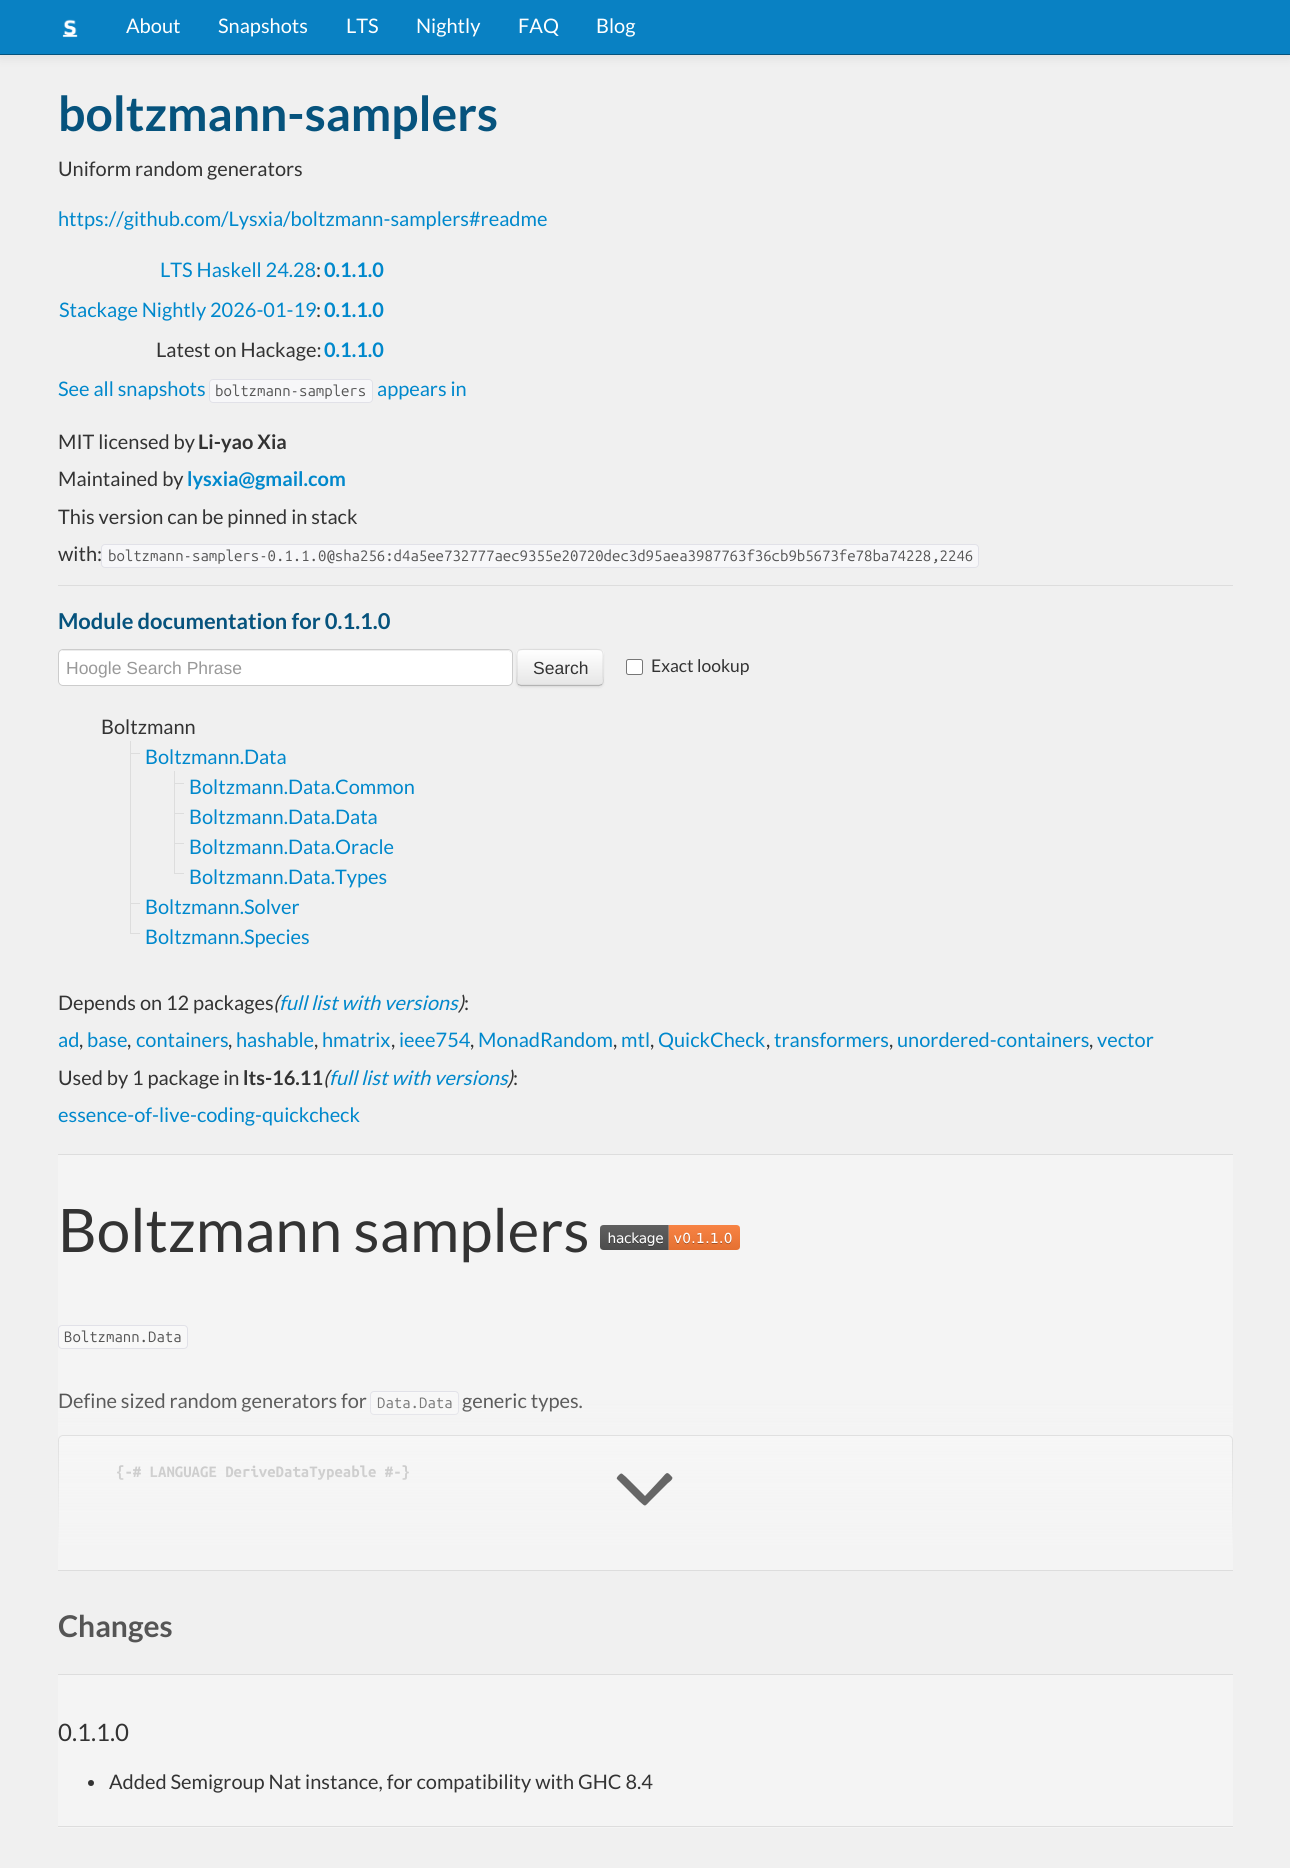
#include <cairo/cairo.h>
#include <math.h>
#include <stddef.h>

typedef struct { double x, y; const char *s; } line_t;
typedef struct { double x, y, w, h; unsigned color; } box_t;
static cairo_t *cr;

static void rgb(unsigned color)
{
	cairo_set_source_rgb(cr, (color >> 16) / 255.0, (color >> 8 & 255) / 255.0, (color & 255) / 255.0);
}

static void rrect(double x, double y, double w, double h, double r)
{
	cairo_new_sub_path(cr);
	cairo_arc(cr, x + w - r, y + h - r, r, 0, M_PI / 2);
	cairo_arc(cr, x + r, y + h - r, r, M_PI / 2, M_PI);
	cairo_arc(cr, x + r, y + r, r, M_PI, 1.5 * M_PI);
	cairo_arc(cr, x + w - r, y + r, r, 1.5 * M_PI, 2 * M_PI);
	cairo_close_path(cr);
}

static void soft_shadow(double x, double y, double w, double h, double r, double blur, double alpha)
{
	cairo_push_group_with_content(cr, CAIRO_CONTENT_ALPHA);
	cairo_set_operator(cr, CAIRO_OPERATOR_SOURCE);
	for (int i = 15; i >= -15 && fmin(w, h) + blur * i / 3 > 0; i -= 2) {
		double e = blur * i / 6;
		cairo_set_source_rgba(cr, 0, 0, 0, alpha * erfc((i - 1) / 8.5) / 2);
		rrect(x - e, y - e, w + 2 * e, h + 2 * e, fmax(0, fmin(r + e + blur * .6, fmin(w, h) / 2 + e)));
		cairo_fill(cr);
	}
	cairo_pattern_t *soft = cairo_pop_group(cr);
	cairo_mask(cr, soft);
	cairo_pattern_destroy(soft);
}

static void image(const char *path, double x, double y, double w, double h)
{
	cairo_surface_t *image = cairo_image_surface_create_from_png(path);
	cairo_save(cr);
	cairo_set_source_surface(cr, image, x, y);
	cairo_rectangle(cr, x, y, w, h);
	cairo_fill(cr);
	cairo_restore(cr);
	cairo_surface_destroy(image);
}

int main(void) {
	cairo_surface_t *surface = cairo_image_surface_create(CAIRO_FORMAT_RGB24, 1290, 1868);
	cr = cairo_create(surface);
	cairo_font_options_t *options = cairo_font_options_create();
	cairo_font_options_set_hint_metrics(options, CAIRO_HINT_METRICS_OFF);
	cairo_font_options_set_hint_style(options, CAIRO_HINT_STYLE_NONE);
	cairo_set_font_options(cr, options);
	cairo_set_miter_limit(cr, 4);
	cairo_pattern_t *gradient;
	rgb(0xf0f0f0);
	cairo_paint(cr);
	rgb(0x000000);
	soft_shadow(0, 1, 1290, 55, 0, 6, 0.1);
	rgb(0x0981c3);
	cairo_rectangle(cr, 0, 0, 1290, 54);
	cairo_fill(cr);
	rgb(0x06537d);
	cairo_rectangle(cr, 0, 54, 1290, 1);
	cairo_fill(cr);
	image("img/1.png", 62, 19, 16, 19);
	rgb(0xf7f7f9);
	rrect(209.5, 379.5, 163, 23, 3.5);
	cairo_fill_preserve(cr);
	rgb(0xe1e1e8);
	cairo_set_line_width(cr, 1);
	cairo_stroke(cr);
	rgb(0xf7f7f9);
	rrect(101.5, 544.5, 877, 23, 3.5);
	cairo_fill_preserve(cr);
	rgb(0xe1e1e8);
	cairo_stroke(cr);
	rgb(0xdddddd);
	cairo_rectangle(cr, 58, 585, 1175, 1);
	cairo_fill(cr);
	rgb(0xffffff);
	rrect(58, 649, 455, 37, 5);
	cairo_fill(cr);
	rgb(0xececec);
	cairo_new_path(cr);
	cairo_move_to(cr, 62, 651);
	cairo_line_to(cr, 508, 651);
	cairo_curve_to(cr, 510, 651, 511, 653, 511, 655);
	cairo_curve_to(cr, 511, 652, 510, 650, 507, 650);
	cairo_line_to(cr, 63, 650);
	cairo_line_to(cr, 61, 651);
	cairo_line_to(cr, 60, 652);
	cairo_line_to(cr, 59, 655);
	cairo_curve_to(cr, 59, 653, 60, 651, 62, 651);
	cairo_close_path(cr);
	cairo_fill(cr);
	rrect(58.5, 649.5, 454, 36, 4.5);
	rgb(0xcccccc);
	cairo_stroke(cr);
	rgb(0x000000);
	soft_shadow(516, 650, 88, 38, 5, 1, 0.05);
	rgb(0xf5f5f5);
	rrect(516, 649, 88, 37, 5);
	cairo_fill(cr);
	cairo_save(cr);
	rrect(516, 649, 88, 37, 5);
	cairo_clip(cr);
	gradient = cairo_pattern_create_linear(560, 650, 560, 685);
	cairo_pattern_add_color_stop_rgba(gradient, 0, 1, 1, 1, 1);
	cairo_pattern_add_color_stop_rgba(gradient, 1, 0.902, 0.902, 0.902, 1);
	cairo_set_source(cr, gradient);
	cairo_pattern_destroy(gradient);
	cairo_rectangle(cr, 516, 650, 88, 35);
	cairo_fill(cr);
	cairo_restore(cr);
	cairo_set_source_rgba(cr, 1, 1, 1, 0.2);
	cairo_new_path(cr);
	cairo_move_to(cr, 521, 651);
	cairo_line_to(cr, 599, 651);
	cairo_curve_to(cr, 604, 651, 602, 662, 602, 664);
	cairo_line_to(cr, 602, 684);
	cairo_curve_to(cr, 604, 681, 603, 671, 603, 668);
	cairo_curve_to(cr, 603, 648, 606, 650, 586, 650);
	cairo_line_to(cr, 535, 650);
	cairo_curve_to(cr, 534, 650, 520, 647, 518, 652);
	cairo_line_to(cr, 518, 655);
	cairo_curve_to(cr, 518, 653, 519, 651, 521, 651);
	cairo_close_path(cr);
	cairo_fill(cr);
	cairo_new_path(cr);
	cairo_move_to(cr, 602, 684.5);
	cairo_line_to(cr, 599, 685.5);
	cairo_line_to(cr, 521, 685.5);
	cairo_line_to(cr, 518, 684.5);
	rgb(0xb3b3b3);
	cairo_set_line_width(cr, 1.2);
	cairo_stroke(cr);
	cairo_new_path(cr);
	cairo_move_to(cr, 518, 684.5);
	cairo_curve_to(cr, 516, 682.5, 517, 679, 517, 676.5);
	cairo_line_to(cr, 517, 667.5);
	cairo_curve_to(cr, 517, 647.5, 514, 649.5, 534, 649.5);
	cairo_line_to(cr, 586, 649.5);
	cairo_curve_to(cr, 606, 649.5, 603, 647.5, 603, 667.5);
	cairo_line_to(cr, 603, 676.5);
	cairo_curve_to(cr, 603, 679, 604, 682.5, 602, 684.5);
	cairo_set_source_rgba(cr, 0, 0, 0, 0.1);
	cairo_stroke(cr);
	rgb(0xffffff);
	rrect(626.5, 659.5, 16, 15, 2);
	cairo_fill_preserve(cr);
	rgb(0x767676);
	cairo_set_line_width(cr, 1);
	cairo_stroke(cr);
	{
		static const box_t items[] = {
			{130, 753, 10, 1, 0xdddddd},
			{130, 741, 1, 150, 0xdddddd},
			{174, 783, 10, 1, 0xdddddd},
			{174, 771, 1, 30, 0xdddddd},
			{174, 813, 10, 1, 0xdddddd},
			{174, 801, 1, 30, 0xdddddd},
			{174, 843, 10, 1, 0xdddddd},
			{174, 831, 1, 42, 0xdddddd},
			{174, 873, 10, 1, 0xdddddd},
			{130, 903, 10, 1, 0xdddddd},
			{130, 891, 1, 42, 0xdddddd},
			{130, 933, 10, 1, 0xdddddd},
			{58, 1155, 1175, 415, 0xf4f4f4},
			{58, 1154, 1175, 1, 0xdddddd},
			{58, 1570, 1175, 1, 0xdddddd},
		};
		for (size_t i = 0; i < sizeof items / sizeof *items; i++) {
			rgb(items[i].color);
			cairo_rectangle(cr, items[i].x, items[i].y, items[i].w, items[i].h);
			cairo_fill(cr);
		}
	}
	image("img/2.png", 600, 1225, 140, 25);
	rgb(0xf8f8f8);
	rrect(58.5, 1325.5, 129, 23, 3.5);
	cairo_fill_preserve(cr);
	rgb(0xe1e1e8);
	cairo_stroke(cr);
	rgb(0xf8f8f8);
	rrect(370.5, 1391.5, 88, 23, 3.5);
	cairo_fill_preserve(cr);
	rgb(0xe1e1e8);
	cairo_stroke(cr);
	rgb(0xf8f8f8);
	cairo_new_path(cr);
	cairo_move_to(cr, 63, 1435);
	cairo_line_to(cr, 1228, 1435);
	cairo_curve_to(cr, 1231, 1435, 1233, 1437, 1233, 1440);
	cairo_line_to(cr, 1233, 1550);
	cairo_line_to(cr, 58, 1550);
	cairo_line_to(cr, 58, 1440);
	cairo_curve_to(cr, 58, 1437, 60, 1435, 63, 1435);
	cairo_close_path(cr);
	cairo_fill(cr);
	{
		static const box_t items[] = {
			{58, 1675, 1175, 153, 0xf4f4f4},
			{58, 1674, 1175, 1, 0xdddddd},
			{58, 1826, 1175, 1, 0xdddddd},
		};
		for (size_t i = 0; i < sizeof items / sizeof *items; i++) {
			rgb(items[i].color);
			cairo_rectangle(cr, items[i].x, items[i].y, items[i].w, items[i].h);
			cairo_fill(cr);
		}
	}
	cairo_select_font_face(cr, "Lato", CAIRO_FONT_SLANT_NORMAL, CAIRO_FONT_WEIGHT_NORMAL);
	cairo_set_font_size(cr, 20);
	rgb(0xffffff);
	{
		static const line_t items[] = {
			{126, 33, "About"},
			{218, 33, "Snapshots"},
			{346, 33, "LTS"},
			{416, 33, "Nightly"},
			{518, 33, "FAQ"},
			{596, 33, "Blog"},
		};
		for (size_t i = 0; i < sizeof items / sizeof *items; i++) {
			cairo_move_to(cr, items[i].x, items[i].y);
			cairo_show_text(cr, items[i].s);
		}
	}
	cairo_select_font_face(cr, "Lato", CAIRO_FONT_SLANT_NORMAL, CAIRO_FONT_WEIGHT_BOLD);
	cairo_set_font_size(cr, 48.1);
	rgb(0x06537d);
	cairo_move_to(cr, 58, 131);
	cairo_show_text(cr, "boltzmann-samplers");
	cairo_select_font_face(cr, "Lato", CAIRO_FONT_SLANT_NORMAL, CAIRO_FONT_WEIGHT_NORMAL);
	cairo_set_font_size(cr, 20);
	rgb(0x333333);
	cairo_move_to(cr, 58, 176);
	cairo_show_text(cr, "Uniform random generators");
	rgb(0x0088cc);
	cairo_move_to(cr, 58, 226);
	cairo_show_text(cr, "https://github.com/Lysxia/boltzmann-samplers#readme");
	cairo_move_to(cr, 160, 277);
	cairo_show_text(cr, "LTS Haskell 24.28");
	rgb(0x333333);
	cairo_move_to(cr, 316, 277);
	cairo_show_text(cr, ":");
	cairo_select_font_face(cr, "Lato", CAIRO_FONT_SLANT_NORMAL, CAIRO_FONT_WEIGHT_BOLD);
	rgb(0x0088cc);
	cairo_move_to(cr, 324, 277);
	cairo_show_text(cr, "0.1.1.0");
	cairo_select_font_face(cr, "Lato", CAIRO_FONT_SLANT_NORMAL, CAIRO_FONT_WEIGHT_NORMAL);
	cairo_move_to(cr, 59, 317);
	cairo_show_text(cr, "Stackage Nightly 2026-01-19");
	rgb(0x333333);
	cairo_move_to(cr, 316, 317);
	cairo_show_text(cr, ":");
	cairo_select_font_face(cr, "Lato", CAIRO_FONT_SLANT_NORMAL, CAIRO_FONT_WEIGHT_BOLD);
	rgb(0x0088cc);
	cairo_move_to(cr, 324, 317);
	cairo_show_text(cr, "0.1.1.0");
	cairo_select_font_face(cr, "Lato", CAIRO_FONT_SLANT_NORMAL, CAIRO_FONT_WEIGHT_NORMAL);
	rgb(0x333333);
	cairo_move_to(cr, 156, 357);
	cairo_show_text(cr, "Latest on Hackage:");
	cairo_select_font_face(cr, "Lato", CAIRO_FONT_SLANT_NORMAL, CAIRO_FONT_WEIGHT_BOLD);
	rgb(0x0088cc);
	cairo_move_to(cr, 324, 357);
	cairo_show_text(cr, "0.1.1.0");
	cairo_select_font_face(cr, "Lato", CAIRO_FONT_SLANT_NORMAL, CAIRO_FONT_WEIGHT_NORMAL);
	cairo_move_to(cr, 58, 396);
	cairo_show_text(cr, "See all snapshots");
	cairo_select_font_face(cr, "Ubuntu Mono", CAIRO_FONT_SLANT_NORMAL, CAIRO_FONT_WEIGHT_NORMAL);
	cairo_set_font_size(cr, 15);
	rgb(0x555555);
	cairo_move_to(cr, 215, 396);
	cairo_show_text(cr, "boltzmann-samplers");
	cairo_select_font_face(cr, "Lato", CAIRO_FONT_SLANT_NORMAL, CAIRO_FONT_WEIGHT_NORMAL);
	cairo_set_font_size(cr, 20);
	rgb(0x0088cc);
	cairo_move_to(cr, 377, 396);
	cairo_show_text(cr, "appears in");
	rgb(0x333333);
	cairo_move_to(cr, 58, 449);
	cairo_show_text(cr, "MIT licensed by");
	cairo_select_font_face(cr, "Lato", CAIRO_FONT_SLANT_NORMAL, CAIRO_FONT_WEIGHT_BOLD);
	cairo_move_to(cr, 198, 449);
	cairo_show_text(cr, "Li-yao Xia");
	cairo_select_font_face(cr, "Lato", CAIRO_FONT_SLANT_NORMAL, CAIRO_FONT_WEIGHT_NORMAL);
	cairo_move_to(cr, 58, 486);
	cairo_show_text(cr, "Maintained by");
	cairo_select_font_face(cr, "Lato", CAIRO_FONT_SLANT_NORMAL, CAIRO_FONT_WEIGHT_BOLD);
	rgb(0x0088cc);
	cairo_move_to(cr, 187, 486);
	cairo_show_text(cr, "lysxia@gmail.com");
	cairo_select_font_face(cr, "Lato", CAIRO_FONT_SLANT_NORMAL, CAIRO_FONT_WEIGHT_NORMAL);
	rgb(0x333333);
	cairo_move_to(cr, 58, 524);
	cairo_show_text(cr, "This version can be pinned in stack");
	cairo_move_to(cr, 58, 561);
	cairo_show_text(cr, "with:");
	cairo_select_font_face(cr, "Ubuntu Mono", CAIRO_FONT_SLANT_NORMAL, CAIRO_FONT_WEIGHT_NORMAL);
	cairo_set_font_size(cr, 15);
	rgb(0x555555);
	cairo_move_to(cr, 108, 561);
	cairo_show_text(cr, "boltzmann-samplers-0.1.1.0@sha256:d4a5ee732777aec9355e20720dec3d95aea3987763f36cb9b5673fe78ba74228,2246");
	cairo_select_font_face(cr, "Lato", CAIRO_FONT_SLANT_NORMAL, CAIRO_FONT_WEIGHT_BOLD);
	cairo_set_font_size(cr, 21.9);
	rgb(0x06537d);
	cairo_move_to(cr, 58, 629);
	cairo_show_text(cr, "Module documentation for 0.1.1.0");
	cairo_select_font_face(cr, "Liberation Sans", CAIRO_FONT_SLANT_NORMAL, CAIRO_FONT_WEIGHT_NORMAL);
	cairo_set_font_size(cr, 17.5);
	rgb(0x999999);
	cairo_move_to(cr, 66, 674);
	cairo_show_text(cr, "Hoogle Search Phrase");
	rgb(0x333333);
	cairo_move_to(cr, 533, 674);
	cairo_show_text(cr, "Search");
	cairo_select_font_face(cr, "Lato", CAIRO_FONT_SLANT_NORMAL, CAIRO_FONT_WEIGHT_NORMAL);
	cairo_move_to(cr, 651, 672);
	cairo_show_text(cr, "Exact lookup");
	cairo_set_font_size(cr, 20);
	cairo_move_to(cr, 101, 734);
	cairo_show_text(cr, "Boltzmann");
	rgb(0x0088cc);
	{
		static const line_t items[] = {
			{145, 764, "Boltzmann.Data"},
			{189, 794, "Boltzmann.Data.Common"},
			{189, 824, "Boltzmann.Data.Data"},
			{189, 854, "Boltzmann.Data.Oracle"},
			{189, 884, "Boltzmann.Data.Types"},
			{145, 914, "Boltzmann.Solver"},
			{145, 944, "Boltzmann.Species"},
		};
		for (size_t i = 0; i < sizeof items / sizeof *items; i++) {
			cairo_move_to(cr, items[i].x, items[i].y);
			cairo_show_text(cr, items[i].s);
		}
	}
	rgb(0x333333);
	cairo_move_to(cr, 58, 1010);
	cairo_show_text(cr, "Depends on 12 packages");
	cairo_select_font_face(cr, "Lato", CAIRO_FONT_SLANT_ITALIC, CAIRO_FONT_WEIGHT_NORMAL);
	cairo_move_to(cr, 273, 1010);
	cairo_show_text(cr, "(");
	rgb(0x0088cc);
	cairo_move_to(cr, 279, 1010);
	cairo_show_text(cr, "full list with versions");
	rgb(0x333333);
	cairo_move_to(cr, 458, 1010);
	cairo_show_text(cr, ")");
	cairo_select_font_face(cr, "Lato", CAIRO_FONT_SLANT_NORMAL, CAIRO_FONT_WEIGHT_NORMAL);
	cairo_move_to(cr, 464, 1010);
	cairo_show_text(cr, ":");
	rgb(0x0088cc);
	cairo_move_to(cr, 58, 1047);
	cairo_show_text(cr, "ad");
	rgb(0x333333);
	cairo_move_to(cr, 79, 1047);
	cairo_show_text(cr, ",");
	rgb(0x0088cc);
	cairo_move_to(cr, 87, 1047);
	cairo_show_text(cr, "base");
	rgb(0x333333);
	cairo_move_to(cr, 127, 1047);
	cairo_show_text(cr, ",");
	rgb(0x0088cc);
	cairo_move_to(cr, 136, 1047);
	cairo_show_text(cr, "containers");
	rgb(0x333333);
	cairo_move_to(cr, 228, 1047);
	cairo_show_text(cr, ",");
	rgb(0x0088cc);
	cairo_move_to(cr, 236, 1047);
	cairo_show_text(cr, "hashable");
	rgb(0x333333);
	cairo_move_to(cr, 314, 1047);
	cairo_show_text(cr, ",");
	rgb(0x0088cc);
	cairo_move_to(cr, 322, 1047);
	cairo_show_text(cr, "hmatrix");
	rgb(0x333333);
	cairo_move_to(cr, 391, 1047);
	cairo_show_text(cr, ",");
	rgb(0x0088cc);
	cairo_move_to(cr, 399, 1047);
	cairo_show_text(cr, "ieee754");
	rgb(0x333333);
	cairo_move_to(cr, 470, 1047);
	cairo_show_text(cr, ",");
	rgb(0x0088cc);
	cairo_move_to(cr, 478, 1047);
	cairo_show_text(cr, "MonadRandom");
	rgb(0x333333);
	cairo_move_to(cr, 613, 1047);
	cairo_show_text(cr, ",");
	rgb(0x0088cc);
	cairo_move_to(cr, 621, 1047);
	cairo_show_text(cr, "mtl");
	rgb(0x333333);
	cairo_move_to(cr, 650, 1047);
	cairo_show_text(cr, ",");
	rgb(0x0088cc);
	cairo_move_to(cr, 658, 1047);
	cairo_show_text(cr, "QuickCheck");
	rgb(0x333333);
	cairo_move_to(cr, 766, 1047);
	cairo_show_text(cr, ",");
	rgb(0x0088cc);
	cairo_move_to(cr, 774, 1047);
	cairo_show_text(cr, "transformers");
	rgb(0x333333);
	cairo_move_to(cr, 889, 1047);
	cairo_show_text(cr, ",");
	rgb(0x0088cc);
	cairo_move_to(cr, 897, 1047);
	cairo_show_text(cr, "unordered-containers");
	rgb(0x333333);
	cairo_move_to(cr, 1089, 1047);
	cairo_show_text(cr, ",");
	rgb(0x0088cc);
	cairo_move_to(cr, 1097, 1047);
	cairo_show_text(cr, "vector");
	rgb(0x333333);
	cairo_move_to(cr, 58, 1085);
	cairo_show_text(cr, "Used by 1 package in");
	cairo_select_font_face(cr, "Lato", CAIRO_FONT_SLANT_NORMAL, CAIRO_FONT_WEIGHT_BOLD);
	cairo_move_to(cr, 243, 1085);
	cairo_show_text(cr, "lts-16.11");
	cairo_select_font_face(cr, "Lato", CAIRO_FONT_SLANT_ITALIC, CAIRO_FONT_WEIGHT_NORMAL);
	cairo_move_to(cr, 323, 1085);
	cairo_show_text(cr, "(");
	rgb(0x0088cc);
	cairo_move_to(cr, 329, 1085);
	cairo_show_text(cr, "full list with versions");
	rgb(0x333333);
	cairo_move_to(cr, 507, 1085);
	cairo_show_text(cr, ")");
	cairo_select_font_face(cr, "Lato", CAIRO_FONT_SLANT_NORMAL, CAIRO_FONT_WEIGHT_NORMAL);
	cairo_move_to(cr, 513, 1085);
	cairo_show_text(cr, ":");
	rgb(0x0088cc);
	cairo_move_to(cr, 58, 1122);
	cairo_show_text(cr, "essence-of-live-coding-quickcheck");
	cairo_set_font_size(cr, 60);
	rgb(0x333333);
	cairo_move_to(cr, 58, 1252);
	cairo_show_text(cr, "Boltzmann samplers");
	cairo_select_font_face(cr, "Ubuntu Mono", CAIRO_FONT_SLANT_NORMAL, CAIRO_FONT_WEIGHT_NORMAL);
	cairo_set_font_size(cr, 15);
	rgb(0x555555);
	cairo_move_to(cr, 64, 1342);
	cairo_show_text(cr, "Boltzmann.Data");
	cairo_select_font_face(cr, "Lato", CAIRO_FONT_SLANT_NORMAL, CAIRO_FONT_WEIGHT_NORMAL);
	cairo_set_font_size(cr, 20);
	rgb(0x333333);
	cairo_move_to(cr, 58, 1408);
	cairo_show_text(cr, "Define sized random generators for");
	cairo_select_font_face(cr, "Ubuntu Mono", CAIRO_FONT_SLANT_NORMAL, CAIRO_FONT_WEIGHT_NORMAL);
	cairo_set_font_size(cr, 15);
	rgb(0x555555);
	cairo_move_to(cr, 377, 1408);
	cairo_show_text(cr, "Data.Data");
	cairo_select_font_face(cr, "Lato", CAIRO_FONT_SLANT_NORMAL, CAIRO_FONT_WEIGHT_NORMAL);
	cairo_set_font_size(cr, 20);
	rgb(0x333333);
	cairo_move_to(cr, 462, 1408);
	cairo_show_text(cr, "generic types.");
	cairo_select_font_face(cr, "Lato", CAIRO_FONT_SLANT_NORMAL, CAIRO_FONT_WEIGHT_BOLD);
	cairo_set_font_size(cr, 30);
	rgb(0x555555);
	cairo_move_to(cr, 58, 1637);
	cairo_show_text(cr, "Changes");
	cairo_save(cr);
	cairo_rectangle(cr, 58, 1175, 1175, 375);
	cairo_clip(cr);
	rrect(58.5, 1435.5, 1174, 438, 4.5);
	rgb(0xd3d3d3);
	cairo_stroke(cr);
	cairo_restore(cr);
	cairo_select_font_face(cr, "Ubuntu Mono", CAIRO_FONT_SLANT_NORMAL, CAIRO_FONT_WEIGHT_BOLD);
	cairo_set_font_size(cr, 15);
	rgb(0x999999);
	cairo_move_to(cr, 116, 1477);
	cairo_show_text(cr, "{-# LANGUAGE DeriveDataTypeable #-}");
	gradient = cairo_pattern_create_linear(645, 1363, 645, 1550);
	cairo_pattern_add_color_stop_rgba(gradient, 0, 0.957, 0.957, 0.957, 0);
	cairo_pattern_add_color_stop_rgba(gradient, 1, 0.957, 0.957, 0.957, 1);
	cairo_set_source(cr, gradient);
	cairo_pattern_destroy(gradient);
	cairo_rectangle(cr, 58, 1393, 1175, 157);
	cairo_fill(cr);
	rgb(0x666666);
	cairo_new_path(cr);
	cairo_move_to(cr, 672, 1477);
	cairo_curve_to(cr, 674, 1479, 668, 1483, 668, 1483);
	cairo_line_to(cr, 650, 1501);
	cairo_curve_to(cr, 644, 1507, 646, 1507, 639, 1501);
	cairo_line_to(cr, 617, 1479);
	cairo_curve_to(cr, 616, 1478, 618, 1476, 619, 1475);
	cairo_curve_to(cr, 622, 1472, 622, 1474, 626, 1477);
	cairo_line_to(cr, 645, 1496);
	cairo_line_to(cr, 659, 1481);
	cairo_curve_to(cr, 667, 1473, 666, 1470, 672, 1477);
	cairo_close_path(cr);
	cairo_fill(cr);
	cairo_select_font_face(cr, "Lato", CAIRO_FONT_SLANT_NORMAL, CAIRO_FONT_WEIGHT_NORMAL);
	cairo_set_font_size(cr, 24);
	rgb(0x333333);
	cairo_move_to(cr, 58, 1741);
	cairo_show_text(cr, "0.1.1.0");
	cairo_new_path(cr);
	cairo_arc(cr, 91, 1783, 3, 0, 2 * M_PI);
	cairo_fill(cr);
	cairo_set_font_size(cr, 20);
	cairo_move_to(cr, 109, 1789);
	cairo_show_text(cr, "Added Semigroup Nat instance, for compatibility with GHC 8.4");
	cairo_surface_write_to_png(surface, "page.png");
	cairo_font_options_destroy(options);
	cairo_destroy(cr);
	cairo_surface_destroy(surface);
	return 0;
}
